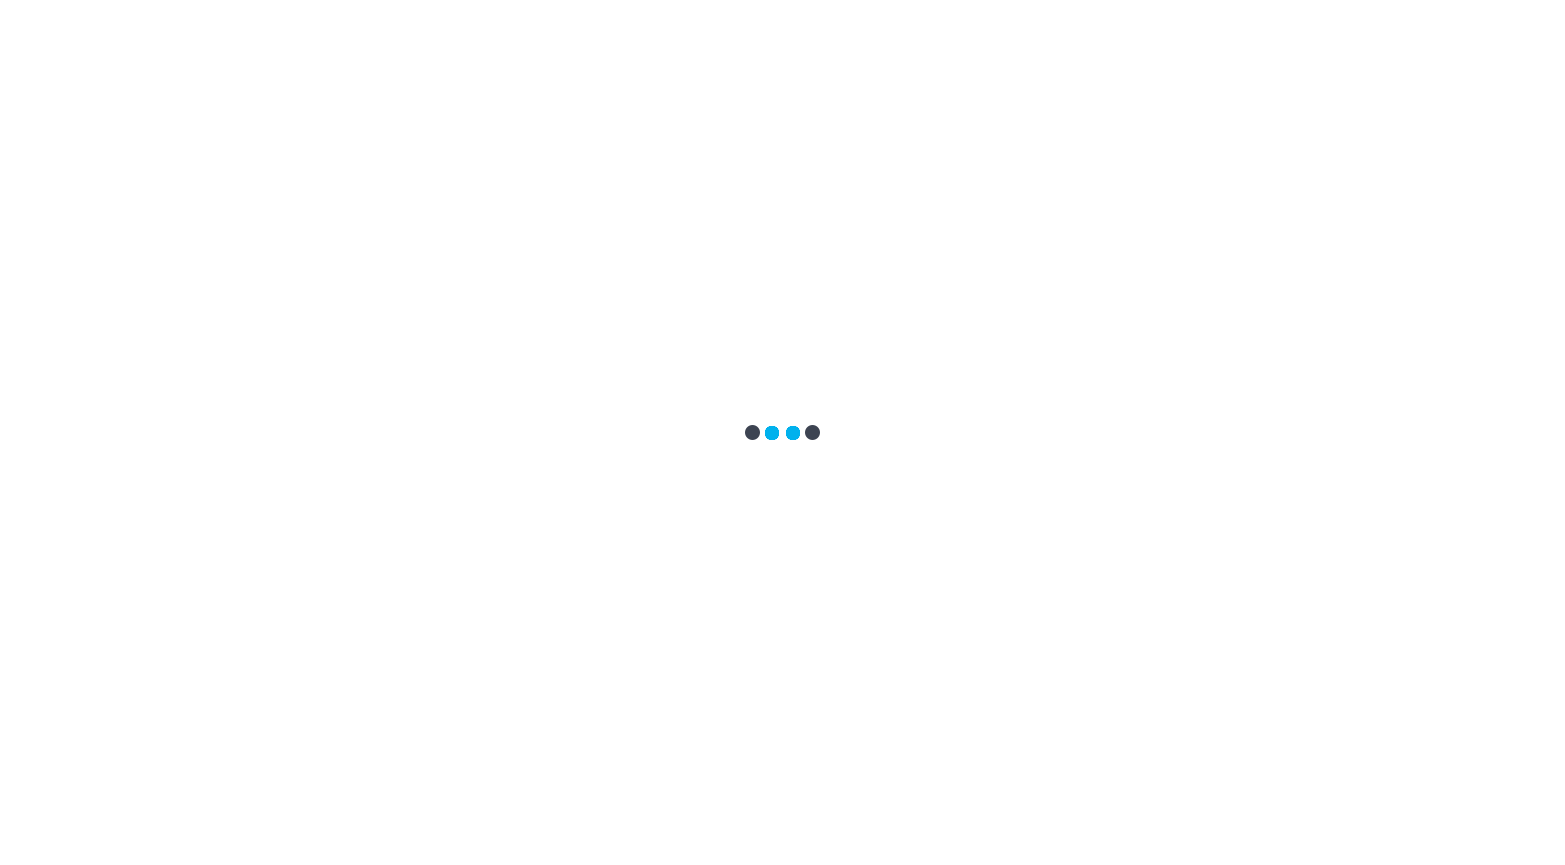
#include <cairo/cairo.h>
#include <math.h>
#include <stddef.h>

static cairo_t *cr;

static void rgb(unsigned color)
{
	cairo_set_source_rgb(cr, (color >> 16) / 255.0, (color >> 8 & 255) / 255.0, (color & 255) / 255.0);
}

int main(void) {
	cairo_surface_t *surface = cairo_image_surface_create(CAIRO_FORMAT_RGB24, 1565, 865);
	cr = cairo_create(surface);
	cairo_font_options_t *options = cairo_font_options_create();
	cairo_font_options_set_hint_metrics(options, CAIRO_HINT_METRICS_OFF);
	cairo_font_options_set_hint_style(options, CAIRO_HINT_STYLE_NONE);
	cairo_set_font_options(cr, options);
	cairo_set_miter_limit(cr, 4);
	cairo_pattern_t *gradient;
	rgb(0xffffff);
	cairo_paint(cr);
	gradient = cairo_pattern_create_radial(793, 433, 0, 793, 433, 7.5);
	cairo_pattern_add_color_stop_rgba(gradient, 0.95, 0, 0.694, 0.929, 1);
	cairo_pattern_add_color_stop_rgba(gradient, 1, 1, 1, 1, 1);
	cairo_set_source(cr, gradient);
	cairo_pattern_destroy(gradient);
	cairo_rectangle(cr, 786, 426, 14, 14);
	cairo_fill(cr);
	gradient = cairo_pattern_create_radial(772, 433, 0, 772, 433, 7.5);
	cairo_pattern_add_color_stop_rgba(gradient, 0.95, 0, 0.694, 0.929, 1);
	cairo_pattern_add_color_stop_rgba(gradient, 1, 1, 1, 1, 1);
	cairo_set_source(cr, gradient);
	cairo_pattern_destroy(gradient);
	cairo_rectangle(cr, 765, 426, 14, 14);
	cairo_fill(cr);
	rgb(0x3d4452);
	cairo_arc(cr, 752.5, 432.5, 7.5, 0, 2 * M_PI);
	cairo_fill(cr);
	cairo_arc(cr, 812.5, 432.5, 7.5, 0, 2 * M_PI);
	cairo_fill(cr);
	cairo_surface_write_to_png(surface, "page.png");
	cairo_font_options_destroy(options);
	cairo_destroy(cr);
	cairo_surface_destroy(surface);
	return 0;
}
